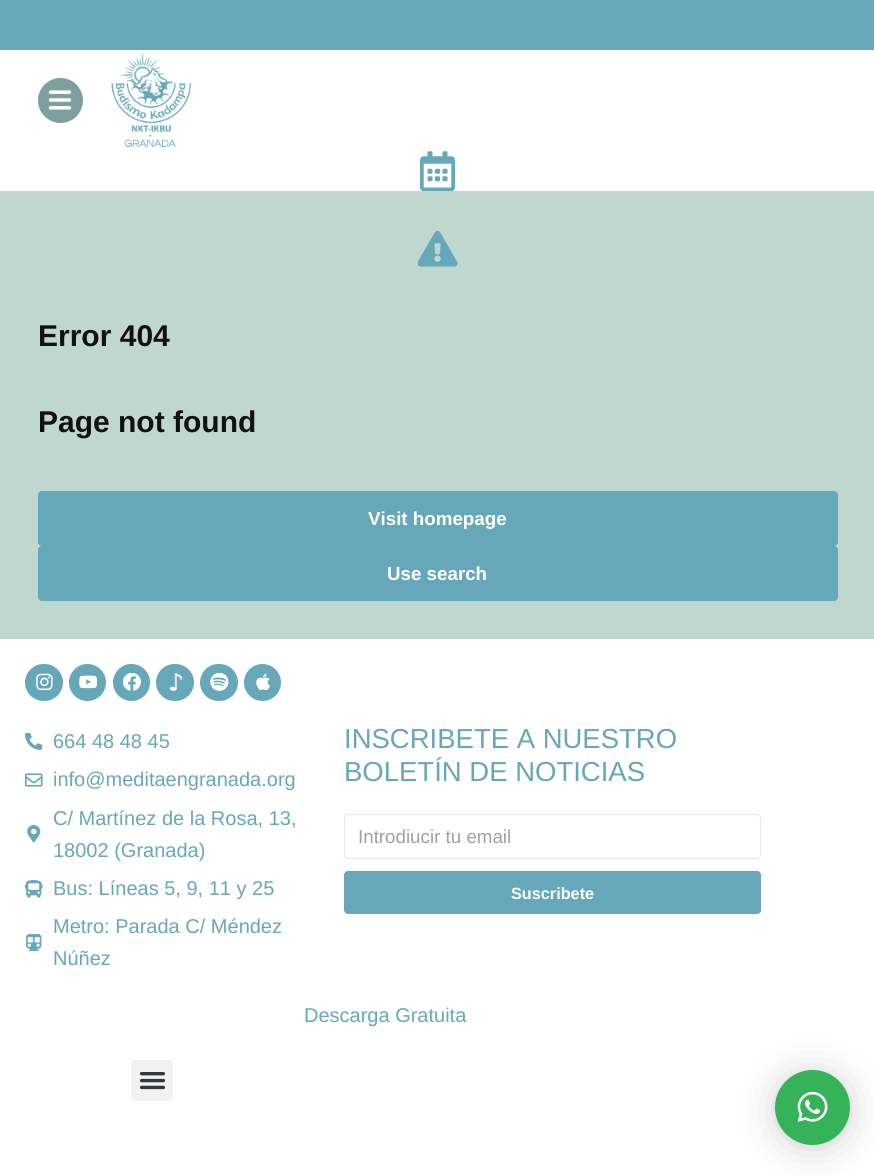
#include <cairo/cairo.h>
#include <math.h>
#include <stddef.h>

typedef struct { double x, y; const char *s; } line_t;
static cairo_t *cr;

static void rgb(unsigned color)
{
	cairo_set_source_rgb(cr, (color >> 16) / 255.0, (color >> 8 & 255) / 255.0, (color & 255) / 255.0);
}

static void rrect(double x, double y, double w, double h, double r)
{
	cairo_new_sub_path(cr);
	cairo_arc(cr, x + w - r, y + h - r, r, 0, M_PI / 2);
	cairo_arc(cr, x + r, y + h - r, r, M_PI / 2, M_PI);
	cairo_arc(cr, x + r, y + r, r, M_PI, 1.5 * M_PI);
	cairo_arc(cr, x + w - r, y + r, r, 1.5 * M_PI, 2 * M_PI);
	cairo_close_path(cr);
}

static void soft_shadow(double x, double y, double w, double h, double r, double blur, double alpha)
{
	cairo_push_group_with_content(cr, CAIRO_CONTENT_ALPHA);
	cairo_set_operator(cr, CAIRO_OPERATOR_SOURCE);
	for (int i = 15; i >= -15 && fmin(w, h) + blur * i / 3 > 0; i -= 2) {
		double e = blur * i / 6;
		cairo_set_source_rgba(cr, 0, 0, 0, alpha * erfc((i - 1) / 8.5) / 2);
		rrect(x - e, y - e, w + 2 * e, h + 2 * e, fmax(0, fmin(r + e + blur * .6, fmin(w, h) / 2 + e)));
		cairo_fill(cr);
	}
	cairo_pattern_t *soft = cairo_pop_group(cr);
	cairo_mask(cr, soft);
	cairo_pattern_destroy(soft);
}

static void image(const char *path, double x, double y, double w, double h)
{
	cairo_surface_t *image = cairo_image_surface_create_from_png(path);
	cairo_save(cr);
	cairo_set_source_surface(cr, image, x, y);
	cairo_rectangle(cr, x, y, w, h);
	cairo_fill(cr);
	cairo_restore(cr);
	cairo_surface_destroy(image);
}

int main(void) {
	cairo_surface_t *surface = cairo_image_surface_create(CAIRO_FORMAT_RGB24, 874, 1175);
	cr = cairo_create(surface);
	cairo_font_options_t *options = cairo_font_options_create();
	cairo_font_options_set_hint_metrics(options, CAIRO_HINT_METRICS_OFF);
	cairo_font_options_set_hint_style(options, CAIRO_HINT_STYLE_NONE);
	cairo_set_font_options(cr, options);
	cairo_set_miter_limit(cr, 4);
	rgb(0xbfd7ce);
	cairo_paint(cr);
	rgb(0x66a8b9);
	cairo_rectangle(cr, 0, 0, 874, 50);
	cairo_fill(cr);
	rgb(0xffffff);
	cairo_rectangle(cr, 0, 50, 874, 141);
	cairo_fill(cr);
	rgb(0x7da09e);
	cairo_arc(cr, 60.5, 100.5, 22.5, 0, 2 * M_PI);
	cairo_fill(cr);
	image("img/1.png", 49, 90, 22, 20);
	image("img/2.png", 111, 52, 80, 95);
	image("img/3.png", 420, 151, 35, 40);
	image("img/4.png", 418, 231, 40, 36);
	rgb(0x66a8b9);
	rrect(38, 491, 800, 55, 4);
	cairo_fill(cr);
	rrect(38, 546, 800, 55, 4);
	cairo_fill(cr);
	rgb(0xffffff);
	cairo_rectangle(cr, 0, 639, 874, 536);
	cairo_fill(cr);
	rgb(0x66a8b9);
	rrect(25, 664, 38, 37, 18.5);
	cairo_fill(cr);
	image("img/5.png", 36, 673, 17, 17);
	cairo_arc(cr, 87.5, 682.5, 18.5, 0, 2 * M_PI);
	cairo_fill(cr);
	image("img/6.png", 79, 675, 18, 14);
	cairo_arc(cr, 131.5, 682.5, 18.5, 0, 2 * M_PI);
	cairo_fill(cr);
	image("img/7.png", 123, 673, 18, 18);
	rrect(156, 664, 38, 37, 18.5);
	cairo_fill(cr);
	image("img/8.png", 169, 673, 14, 18);
	rrect(200, 664, 38, 37, 18.5);
	cairo_fill(cr);
	image("img/9.png", 210, 673, 19, 18);
	cairo_arc(cr, 262.5, 682.5, 18.5, 0, 2 * M_PI);
	cairo_fill(cr);
	image("img/10.png", 256, 673, 14, 18);
	image("img/11.png", 25, 733, 18, 17);
	image("img/12.png", 25, 773, 18, 14);
	image("img/13.png", 27, 825, 14, 18);
	image("img/14.png", 25, 880, 18, 18);
	image("img/15.png", 26, 934, 16, 17);
	rrect(344.5, 814.5, 416, 44, 3.5);
	rgb(0xe6e6e6);
	cairo_set_line_width(cr, 1);
	cairo_stroke(cr);
	rgb(0x66a8b9);
	rrect(344, 871, 417, 43, 4);
	cairo_fill(cr);
	rgb(0xf2f2f2);
	rrect(131, 1060, 42, 41, 4);
	cairo_fill(cr);
	image("img/16.png", 139, 1072, 27, 18);
	rgb(0x000000);
	soft_shadow(775, 1073, 75, 75, 37.5, 20, 0.16);
	soft_shadow(775, 1071, 75, 75, 37.5, 4, 0.06);
	rgb(0x35b359);
	cairo_arc(cr, 812.5, 1107.5, 37.5, 0, 2 * M_PI);
	cairo_fill(cr);
	image("img/17.png", 797, 1091, 31, 31);
	cairo_select_font_face(cr, "Liberation Sans", CAIRO_FONT_SLANT_NORMAL, CAIRO_FONT_WEIGHT_BOLD);
	cairo_set_font_size(cr, 30);
	rgb(0x111111);
	cairo_move_to(cr, 38, 346);
	cairo_show_text(cr, "Error 404");
	cairo_move_to(cr, 38, 432);
	cairo_show_text(cr, "Page not found");
	cairo_set_font_size(cr, 18.75);
	rgb(0xffffff);
	cairo_move_to(cr, 368, 525);
	cairo_show_text(cr, "Visit homepage");
	cairo_move_to(cr, 387, 580);
	cairo_show_text(cr, "Use search");
	cairo_select_font_face(cr, "Liberation Sans", CAIRO_FONT_SLANT_NORMAL, CAIRO_FONT_WEIGHT_NORMAL);
	cairo_set_font_size(cr, 20);
	rgb(0x66a8b9);
	{
		static const line_t items[] = {
			{53, 748, "664 48 48 45"},
			{53, 786, "info@meditaengranada.org"},
			{53, 825, "C/ Martínez de la Rosa, 13,"},
			{53, 857, "18002 (Granada)"},
			{53, 895, "Bus: Líneas 5, 9, 11 y 25"},
			{53, 933, "Metro: Parada C/ Méndez"},
			{53, 965, "Núñez"},
		};
		for (size_t i = 0; i < sizeof items / sizeof *items; i++) {
			cairo_move_to(cr, items[i].x, items[i].y);
			cairo_show_text(cr, items[i].s);
		}
	}
	cairo_set_font_size(cr, 27.5);
	cairo_move_to(cr, 344, 748);
	cairo_show_text(cr, "INSCRIBETE A NUESTRO");
	cairo_move_to(cr, 344, 781);
	cairo_show_text(cr, "BOLETÍN DE NOTICIAS");
	cairo_set_font_size(cr, 18.75);
	rgb(0xa0a0a0);
	cairo_move_to(cr, 358, 843);
	cairo_show_text(cr, "Introdiucir tu email");
	cairo_select_font_face(cr, "Liberation Sans", CAIRO_FONT_SLANT_NORMAL, CAIRO_FONT_WEIGHT_BOLD);
	cairo_set_font_size(cr, 16.25);
	rgb(0xffffff);
	cairo_move_to(cr, 511, 899);
	cairo_show_text(cr, "Suscribete");
	cairo_select_font_face(cr, "Liberation Sans", CAIRO_FONT_SLANT_NORMAL, CAIRO_FONT_WEIGHT_NORMAL);
	cairo_set_font_size(cr, 20);
	rgb(0x66a8b9);
	cairo_move_to(cr, 304, 1022);
	cairo_show_text(cr, "Descarga Gratuita");
	cairo_surface_write_to_png(surface, "page.png");
	cairo_font_options_destroy(options);
	cairo_destroy(cr);
	cairo_surface_destroy(surface);
	return 0;
}
